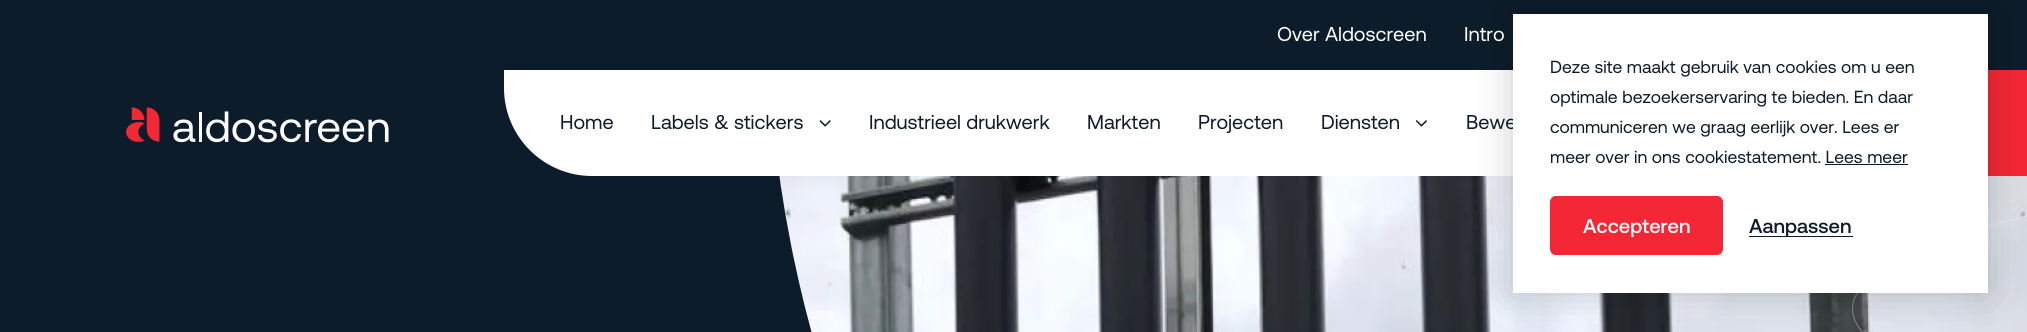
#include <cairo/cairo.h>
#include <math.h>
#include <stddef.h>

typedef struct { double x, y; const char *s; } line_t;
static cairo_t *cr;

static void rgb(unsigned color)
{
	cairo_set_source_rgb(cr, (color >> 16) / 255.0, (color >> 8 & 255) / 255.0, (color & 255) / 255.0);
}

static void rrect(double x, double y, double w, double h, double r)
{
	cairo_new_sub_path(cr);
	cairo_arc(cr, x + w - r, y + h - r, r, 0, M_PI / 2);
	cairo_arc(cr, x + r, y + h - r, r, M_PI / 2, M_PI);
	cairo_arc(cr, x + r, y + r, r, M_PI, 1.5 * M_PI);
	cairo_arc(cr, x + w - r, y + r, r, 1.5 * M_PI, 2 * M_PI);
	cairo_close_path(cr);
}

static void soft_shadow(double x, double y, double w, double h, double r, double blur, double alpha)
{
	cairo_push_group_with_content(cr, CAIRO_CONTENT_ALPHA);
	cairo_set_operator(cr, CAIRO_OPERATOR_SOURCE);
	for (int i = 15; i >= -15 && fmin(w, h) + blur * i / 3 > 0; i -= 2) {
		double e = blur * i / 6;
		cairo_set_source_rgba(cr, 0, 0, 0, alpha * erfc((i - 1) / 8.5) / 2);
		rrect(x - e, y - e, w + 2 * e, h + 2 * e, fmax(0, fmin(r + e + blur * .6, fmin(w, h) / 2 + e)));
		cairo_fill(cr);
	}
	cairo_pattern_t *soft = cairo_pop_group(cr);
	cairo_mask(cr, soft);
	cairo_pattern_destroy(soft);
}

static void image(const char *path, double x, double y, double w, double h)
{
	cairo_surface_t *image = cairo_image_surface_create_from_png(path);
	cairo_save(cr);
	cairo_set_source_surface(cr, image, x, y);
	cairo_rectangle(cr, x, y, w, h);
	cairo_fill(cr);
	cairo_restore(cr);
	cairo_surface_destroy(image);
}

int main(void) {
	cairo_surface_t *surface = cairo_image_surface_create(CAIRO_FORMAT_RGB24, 2027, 332);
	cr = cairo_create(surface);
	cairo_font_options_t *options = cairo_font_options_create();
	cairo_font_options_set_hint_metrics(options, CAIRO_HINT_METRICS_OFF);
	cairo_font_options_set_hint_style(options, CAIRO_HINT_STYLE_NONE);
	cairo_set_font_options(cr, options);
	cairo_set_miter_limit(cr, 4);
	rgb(0x0d1c2a);
	cairo_paint(cr);
	image("img/1.png", 126, 107, 263, 36);
	rgb(0xffffff);
	cairo_new_path(cr);
	cairo_move_to(cr, 504, 70);
	cairo_line_to(cr, 2016, 70);
	cairo_line_to(cr, 2016, 176);
	cairo_line_to(cr, 592, 176);
	cairo_curve_to(cr, 543.5, 176, 504, 136.5, 504, 88);
	cairo_close_path(cr);
	cairo_fill(cr);
	image("img/2.png", 819, 120, 12, 7);
	image("img/3.png", 1415, 120, 12, 7);
	rgb(0xf32735);
	cairo_rectangle(cr, 1988, 70, 39, 106);
	cairo_fill(cr);
	image("img/4.png", 779, 176, 1248, 156);
	cairo_new_path(cr);
	cairo_move_to(cr, 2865.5, 143);
	cairo_curve_to(cr, 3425, 143, 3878.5, 217.5, 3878.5, 309);
	cairo_curve_to(cr, 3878.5, 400, 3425, 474.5, 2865.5, 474.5);
	cairo_curve_to(cr, 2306, 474.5, 1852.5, 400, 1852.5, 309);
	cairo_curve_to(cr, 1852.5, 217.5, 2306, 143, 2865.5, 143);
	cairo_close_path(cr);
	cairo_set_source_rgba(cr, 1, 1, 1, 0.3);
	cairo_set_line_width(cr, 1.2);
	cairo_stroke(cr);
	rgb(0x000000);
	soft_shadow(1513, 14, 475, 279, 0, 19, 0.2);
	cairo_select_font_face(cr, "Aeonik", CAIRO_FONT_SLANT_NORMAL, CAIRO_FONT_WEIGHT_NORMAL);
	cairo_set_font_size(cr, 20);
	rgb(0xffffff);
	cairo_move_to(cr, 1277, 41);
	cairo_show_text(cr, "Over Aldoscreen");
	cairo_move_to(cr, 1464, 41);
	cairo_show_text(cr, "Intro");
	rgb(0x0d1c2a);
	{
		static const line_t items[] = {
			{560, 129, "Home"},
			{651, 129, "Labels & stickers"},
			{869, 129, "Industrieel drukwerk"},
			{1087, 129, "Markten"},
			{1198, 129, "Projecten"},
			{1321, 129, "Diensten"},
			{1466, 129, "Bewe"},
		};
		for (size_t i = 0; i < sizeof items / sizeof *items; i++) {
			cairo_move_to(cr, items[i].x, items[i].y);
			cairo_show_text(cr, items[i].s);
		}
	}
	rgb(0xffffff);
	cairo_rectangle(cr, 1513, 14, 475, 279);
	cairo_fill(cr);
	cairo_set_font_size(cr, 17.5);
	rgb(0x0d1c2a);
	{
		static const line_t items[] = {
			{1550, 73, "Deze site maakt gebruik van cookies om u een"},
			{1550, 103, "optimale bezoekerservaring te bieden. En daar"},
			{1550, 133, "communiceren we graag eerlijk over. Lees er"},
			{1550, 163, "meer over in ons cookiestatement. Lees meer"},
		};
		for (size_t i = 0; i < sizeof items / sizeof *items; i++) {
			cairo_move_to(cr, items[i].x, items[i].y);
			cairo_show_text(cr, items[i].s);
		}
	}
	cairo_rectangle(cr, 1825, 164, 83, 1);
	cairo_fill(cr);
	rgb(0xf32735);
	rrect(1550.5, 196.5, 172, 58, 5.5);
	cairo_fill_preserve(cr);
	cairo_set_line_width(cr, 1);
	cairo_stroke(cr);
	cairo_select_font_face(cr, "Aeonik Medium", CAIRO_FONT_SLANT_NORMAL, CAIRO_FONT_WEIGHT_NORMAL);
	cairo_set_font_size(cr, 20);
	rgb(0xffffff);
	cairo_move_to(cr, 1583, 233);
	cairo_show_text(cr, "Accepteren");
	rgb(0x0d1c2a);
	cairo_rectangle(cr, 1748, 236, 105, 1);
	cairo_fill(cr);
	rgb(0xffffff);
	cairo_rectangle(cr, 1748, 236, 1, 2);
	cairo_fill(cr);
	cairo_save(cr);
	cairo_rectangle(cr, 1749, 216, 102, 20);
	cairo_clip(cr);
	rgb(0x0d1c2a);
	cairo_move_to(cr, 1749, 233);
	cairo_show_text(cr, "Aanpassen");
	cairo_restore(cr);
	cairo_surface_write_to_png(surface, "page.png");
	cairo_font_options_destroy(options);
	cairo_destroy(cr);
	cairo_surface_destroy(surface);
	return 0;
}
